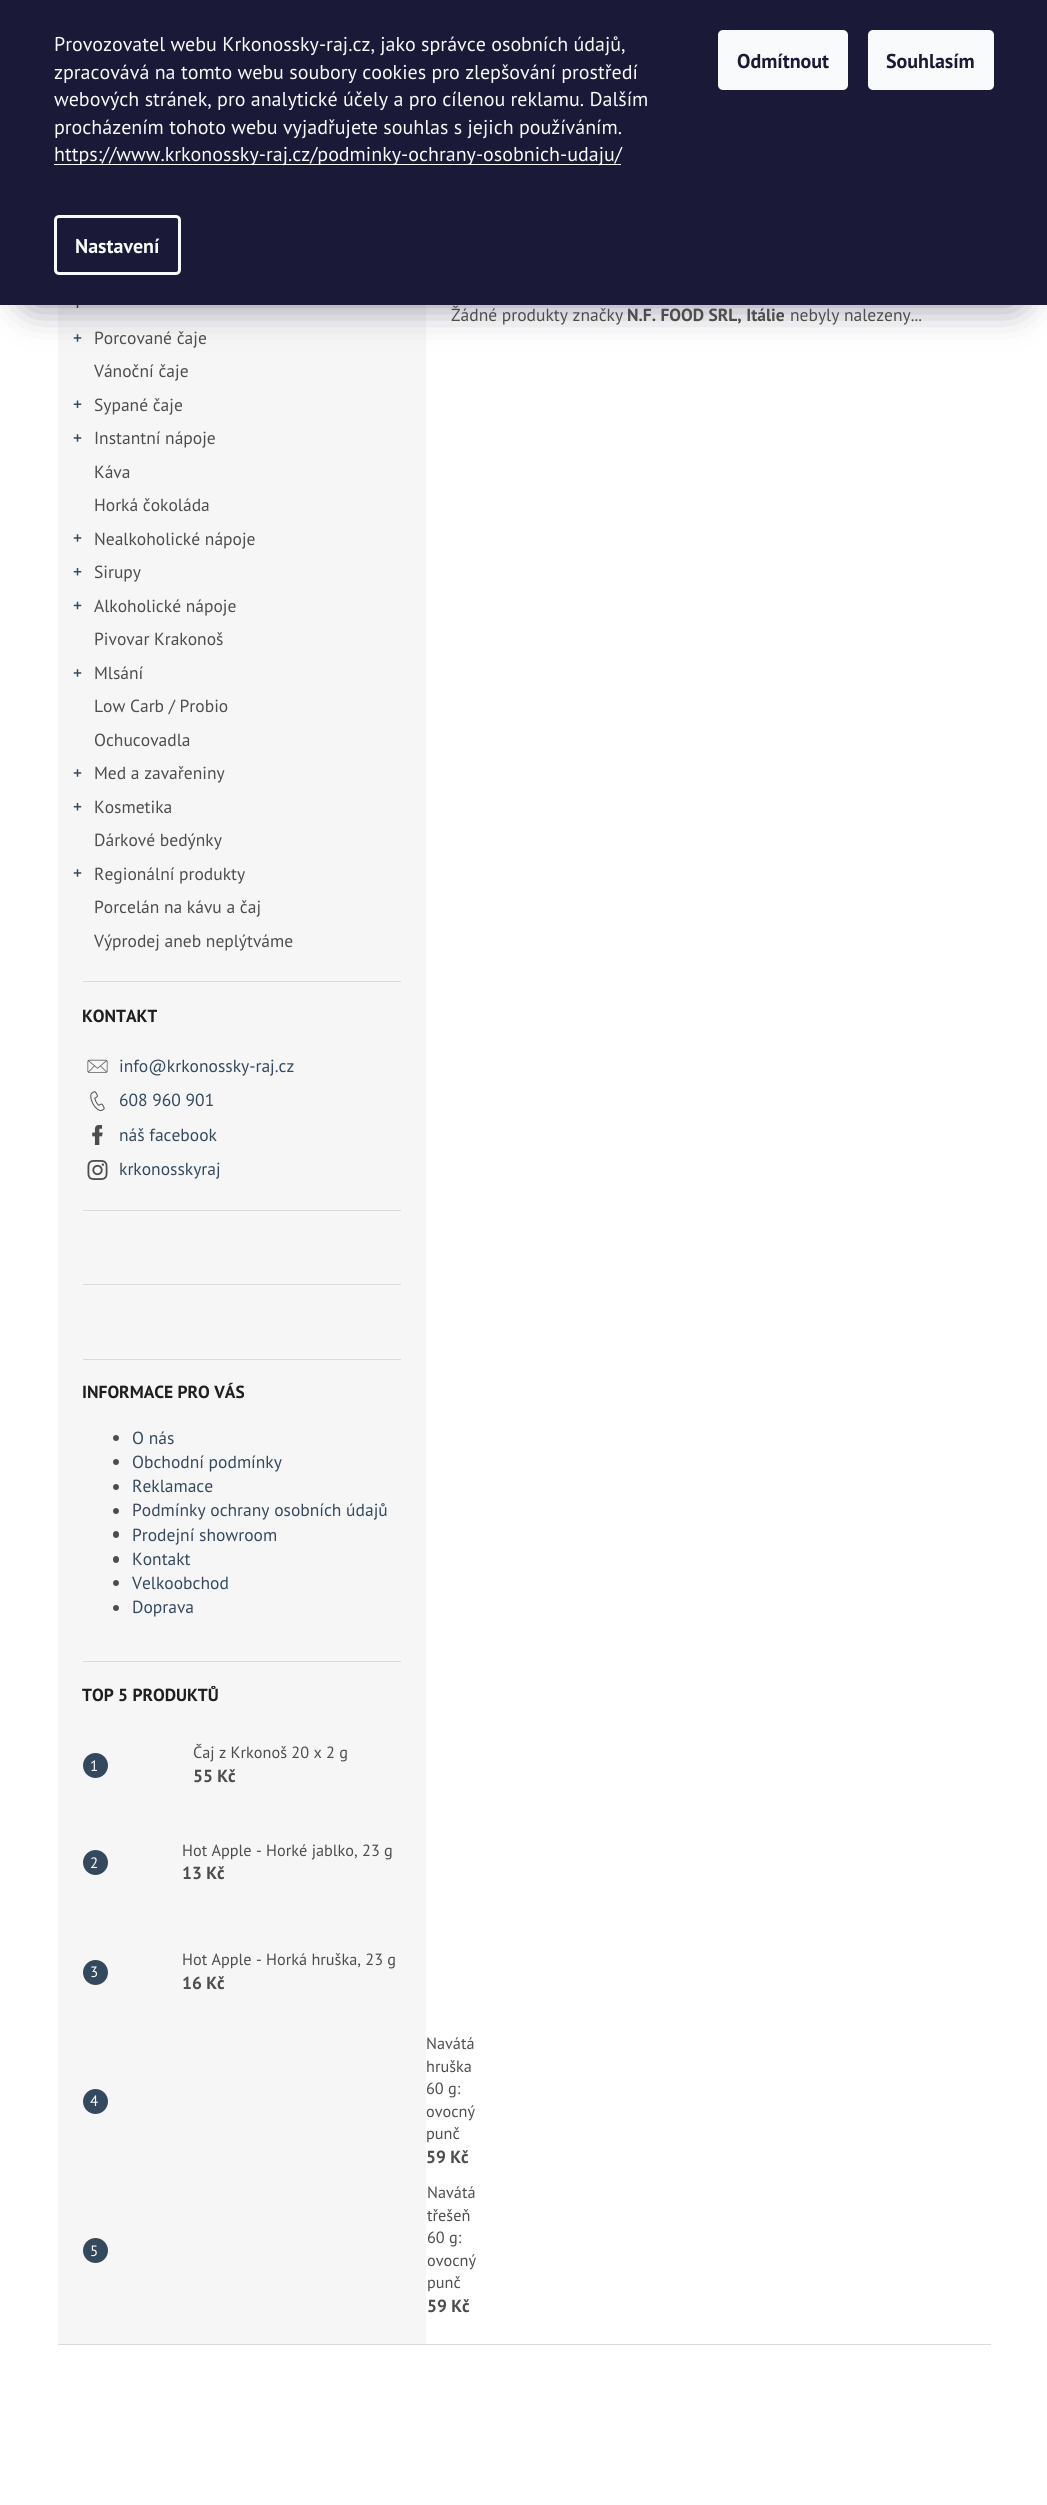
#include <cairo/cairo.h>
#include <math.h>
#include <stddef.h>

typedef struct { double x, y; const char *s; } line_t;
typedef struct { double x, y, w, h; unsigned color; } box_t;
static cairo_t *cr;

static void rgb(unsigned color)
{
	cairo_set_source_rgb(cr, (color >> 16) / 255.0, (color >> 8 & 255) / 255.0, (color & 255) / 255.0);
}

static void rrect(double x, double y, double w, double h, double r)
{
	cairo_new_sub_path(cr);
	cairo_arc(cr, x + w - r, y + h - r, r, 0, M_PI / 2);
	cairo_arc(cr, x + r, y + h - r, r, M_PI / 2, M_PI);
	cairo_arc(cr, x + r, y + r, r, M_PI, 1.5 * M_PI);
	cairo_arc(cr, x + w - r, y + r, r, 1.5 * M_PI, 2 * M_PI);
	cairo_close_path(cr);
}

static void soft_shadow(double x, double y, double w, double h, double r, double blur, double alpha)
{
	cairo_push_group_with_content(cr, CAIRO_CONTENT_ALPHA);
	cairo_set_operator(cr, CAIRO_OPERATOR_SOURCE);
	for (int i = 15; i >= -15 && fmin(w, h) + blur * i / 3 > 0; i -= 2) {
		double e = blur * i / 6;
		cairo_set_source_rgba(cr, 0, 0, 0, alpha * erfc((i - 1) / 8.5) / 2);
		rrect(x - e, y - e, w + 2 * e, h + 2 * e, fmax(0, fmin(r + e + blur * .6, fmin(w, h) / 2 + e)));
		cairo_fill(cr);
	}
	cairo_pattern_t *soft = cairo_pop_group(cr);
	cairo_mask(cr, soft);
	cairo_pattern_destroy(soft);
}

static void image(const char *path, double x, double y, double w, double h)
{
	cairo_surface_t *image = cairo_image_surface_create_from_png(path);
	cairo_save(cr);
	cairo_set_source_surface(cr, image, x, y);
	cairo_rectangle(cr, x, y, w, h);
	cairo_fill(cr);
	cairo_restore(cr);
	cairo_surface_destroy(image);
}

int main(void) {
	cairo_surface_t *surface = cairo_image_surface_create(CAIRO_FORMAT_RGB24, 1047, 2505);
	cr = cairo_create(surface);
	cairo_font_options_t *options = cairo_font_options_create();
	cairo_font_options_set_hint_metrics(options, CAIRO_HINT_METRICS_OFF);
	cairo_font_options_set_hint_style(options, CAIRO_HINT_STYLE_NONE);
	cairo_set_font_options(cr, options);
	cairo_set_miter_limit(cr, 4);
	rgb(0xffffff);
	cairo_paint(cr);
	rgb(0x1a1937);
	cairo_rectangle(cr, 0, 0, 1047, 305);
	cairo_fill(cr);
	rgb(0xf6f6f6);
	cairo_rectangle(cr, 58, 305, 368, 2039);
	cairo_fill(cr);
	image("img/1.png", 76, 305, 3, 3);
	image("img/2.png", 73, 334, 9, 8);
	cairo_save(cr);
	cairo_set_fill_rule(cr, CAIRO_FILL_RULE_EVEN_ODD);
	cairo_new_path(cr);
	cairo_move_to(cr, 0, 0);
	cairo_line_to(cr, 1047, 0);
	cairo_line_to(cr, 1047, 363);
	cairo_line_to(cr, 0, 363);
	cairo_close_path(cr);
	cairo_move_to(cr, 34, 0);
	cairo_line_to(cr, 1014, 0);
	cairo_curve_to(cr, 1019.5, 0, 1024, 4.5, 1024, 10);
	cairo_line_to(cr, 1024, 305);
	cairo_line_to(cr, 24, 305);
	cairo_line_to(cr, 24, 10);
	cairo_curve_to(cr, 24, 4.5, 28.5, 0, 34, 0);
	cairo_close_path(cr);
	cairo_clip(cr);
	rgb(0x1b1939);
	soft_shadow(24, 0, 1000, 305, 10, 19, 0.5);
	cairo_restore(cr);
	rgb(0xf8fafb);
	cairo_rectangle(cr, 54, 164, 567, 1);
	cairo_fill(cr);
	rrect(55.5, 216.5, 124, 57, 3.5);
	cairo_set_line_width(cr, 3);
	cairo_stroke(cr);
	rrect(718, 30, 130, 60, 5);
	cairo_fill(cr);
	rrect(868, 30, 126, 60, 5);
	cairo_fill(cr);
	rgb(0xdadada);
	cairo_rectangle(cr, 83, 981, 318, 1);
	cairo_fill(cr);
	image("img/3.png", 73, 400, 9, 8);
	image("img/2.png", 73, 434, 9, 8);
	image("img/2.png", 73, 534, 9, 8);
	image("img/4.png", 73, 567, 9, 9);
	image("img/5.png", 73, 601, 9, 9);
	image("img/2.png", 73, 669, 9, 8);
	image("img/2.png", 73, 769, 9, 8);
	image("img/4.png", 73, 802, 9, 9);
	image("img/2.png", 73, 869, 9, 8);
	cairo_rectangle(cr, 83, 1210, 318, 1);
	cairo_fill(cr);
	image("img/6.png", 87, 1059, 21, 14);
	image("img/7.png", 90, 1091, 15, 21);
	image("img/8.png", 92, 1125, 11, 20);
	image("img/9.png", 87, 1160, 21, 20);
	{
		static const box_t items[] = {
			{83, 1284, 318, 1, 0xdadada},
			{83, 1359, 318, 1, 0xdadada},
			{83, 1661, 318, 1, 0xdadada},
		};
		for (size_t i = 0; i < sizeof items / sizeof *items; i++) {
			rgb(items[i].color);
			cairo_rectangle(cr, items[i].x, items[i].y, items[i].w, items[i].h);
			cairo_fill(cr);
		}
	}
	rgb(0x4d4d4d);
	cairo_arc(cr, 116, 1438, 3, 0, 2 * M_PI);
	cairo_fill(cr);
	cairo_arc(cr, 116, 1462, 3, 0, 2 * M_PI);
	cairo_fill(cr);
	cairo_arc(cr, 116, 1487, 3, 0, 2 * M_PI);
	cairo_fill(cr);
	cairo_arc(cr, 116, 1511, 3, 0, 2 * M_PI);
	cairo_fill(cr);
	rrect(113, 1531, 6, 7, 3);
	cairo_fill(cr);
	rrect(113, 1556, 6, 7, 3);
	cairo_fill(cr);
	cairo_arc(cr, 116, 1583, 3, 0, 2 * M_PI);
	cairo_fill(cr);
	cairo_arc(cr, 116, 1608, 3, 0, 2 * M_PI);
	cairo_fill(cr);
	rgb(0x34495e);
	cairo_arc(cr, 95.5, 1765.5, 12.5, 0, 2 * M_PI);
	cairo_fill(cr);
	cairo_arc(cr, 95.5, 1862.5, 12.5, 0, 2 * M_PI);
	cairo_fill(cr);
	cairo_arc(cr, 95.5, 1972.5, 12.5, 0, 2 * M_PI);
	cairo_fill(cr);
	cairo_arc(cr, 95.5, 2101.5, 12.5, 0, 2 * M_PI);
	cairo_fill(cr);
	cairo_arc(cr, 95.5, 2250.5, 12.5, 0, 2 * M_PI);
	cairo_fill(cr);
	rgb(0xdadada);
	cairo_rectangle(cr, 58, 2344, 933, 1);
	cairo_fill(cr);
	cairo_select_font_face(cr, "PT Sans", CAIRO_FONT_SLANT_NORMAL, CAIRO_FONT_WEIGHT_NORMAL);
	cairo_set_font_size(cr, 20);
	rgb(0xf8fafb);
	{
		static const line_t items[] = {
			{54, 51, "Provozovatel webu Krkonossky-raj.cz, jako správce osobních údajů,"},
			{54, 79, "zpracovává na tomto webu soubory cookies pro zlepšování prostředí"},
			{54, 106, "webových stránek, pro analytické účely a pro cílenou reklamu. Dalším"},
			{54, 134, "procházením tohoto webu vyjadřujete souhlas s jejich používáním."},
			{54, 161, "https://www.krkonossky-raj.cz/podminky-ochrany-osobnich-udaju/"},
		};
		for (size_t i = 0; i < sizeof items / sizeof *items; i++) {
			cairo_move_to(cr, items[i].x, items[i].y);
			cairo_show_text(cr, items[i].s);
		}
	}
	cairo_select_font_face(cr, "PT Sans", CAIRO_FONT_SLANT_NORMAL, CAIRO_FONT_WEIGHT_BOLD);
	cairo_move_to(cr, 75, 253);
	cairo_show_text(cr, "Nastavení");
	rgb(0x1a1937);
	cairo_move_to(cr, 737, 68);
	cairo_show_text(cr, "Odmítnout");
	cairo_move_to(cr, 886, 68);
	cairo_show_text(cr, "Souhlasím");
	cairo_select_font_face(cr, "PT Sans", CAIRO_FONT_SLANT_NORMAL, CAIRO_FONT_WEIGHT_NORMAL);
	cairo_set_font_size(cr, 17.5);
	rgb(0x4d4d4d);
	cairo_move_to(cr, 451, 321);
	cairo_show_text(cr, "Žádné produkty značky");
	cairo_select_font_face(cr, "PT Sans", CAIRO_FONT_SLANT_NORMAL, CAIRO_FONT_WEIGHT_BOLD);
	cairo_move_to(cr, 627, 321);
	cairo_show_text(cr, "N.F. FOOD SRL, Itálie");
	cairo_select_font_face(cr, "PT Sans", CAIRO_FONT_SLANT_NORMAL, CAIRO_FONT_WEIGHT_NORMAL);
	{
		static const line_t items[] = {
			{790, 321, "nebyly nalezeny..."},
			{94, 344, "Porcované čaje"},
			{94, 377, "Vánoční čaje"},
			{94, 411, "Sypané čaje"},
			{94, 444, "Instantní nápoje"},
			{94, 478, "Káva"},
			{94, 511, "Horká čokoláda"},
			{94, 545, "Nealkoholické nápoje"},
			{94, 578, "Sirupy"},
			{94, 612, "Alkoholické nápoje"},
			{94, 645, "Pivovar Krakonoš"},
			{94, 679, "Mlsání"},
			{94, 712, "Low Carb / Probio"},
			{94, 746, "Ochucovadla"},
			{94, 779, "Med a zavařeniny"},
			{94, 813, "Kosmetika"},
			{94, 846, "Dárkové bedýnky"},
			{94, 880, "Regionální produkty"},
			{94, 913, "Porcelán na kávu a čaj"},
			{94, 947, "Výprodej aneb neplýtváme"},
		};
		for (size_t i = 0; i < sizeof items / sizeof *items; i++) {
			cairo_move_to(cr, items[i].x, items[i].y);
			cairo_show_text(cr, items[i].s);
		}
	}
	cairo_select_font_face(cr, "PT Sans", CAIRO_FONT_SLANT_NORMAL, CAIRO_FONT_WEIGHT_BOLD);
	rgb(0x1f1f1f);
	cairo_move_to(cr, 82, 1022);
	cairo_show_text(cr, "KONTAKT");
	cairo_select_font_face(cr, "PT Sans", CAIRO_FONT_SLANT_NORMAL, CAIRO_FONT_WEIGHT_NORMAL);
	rgb(0x34495e);
	{
		static const line_t items[] = {
			{119, 1072, "info@krkonossky-raj.cz"},
			{119, 1106, "608 960 901"},
			{119, 1141, "náš facebook"},
			{119, 1175, "krkonosskyraj"},
		};
		for (size_t i = 0; i < sizeof items / sizeof *items; i++) {
			cairo_move_to(cr, items[i].x, items[i].y);
			cairo_show_text(cr, items[i].s);
		}
	}
	cairo_select_font_face(cr, "PT Sans", CAIRO_FONT_SLANT_NORMAL, CAIRO_FONT_WEIGHT_BOLD);
	rgb(0x1f1f1f);
	cairo_move_to(cr, 82, 1398);
	cairo_show_text(cr, "INFORMACE PRO VÁS");
	cairo_select_font_face(cr, "PT Sans", CAIRO_FONT_SLANT_NORMAL, CAIRO_FONT_WEIGHT_NORMAL);
	rgb(0x34495e);
	{
		static const line_t items[] = {
			{132, 1444, "O nás"},
			{132, 1468, "Obchodní podmínky"},
			{132, 1492, "Reklamace"},
			{132, 1516, "Podmínky ochrany osobních údajů"},
			{132, 1541, "Prodejní showroom"},
			{132, 1565, "Kontakt"},
			{132, 1589, "Velkoobchod"},
			{132, 1613, "Doprava"},
		};
		for (size_t i = 0; i < sizeof items / sizeof *items; i++) {
			cairo_move_to(cr, items[i].x, items[i].y);
			cairo_show_text(cr, items[i].s);
		}
	}
	cairo_select_font_face(cr, "PT Sans", CAIRO_FONT_SLANT_NORMAL, CAIRO_FONT_WEIGHT_BOLD);
	rgb(0x1f1f1f);
	cairo_move_to(cr, 82, 1701);
	cairo_show_text(cr, "TOP 5 PRODUKTŮ");
	cairo_select_font_face(cr, "PT Sans", CAIRO_FONT_SLANT_NORMAL, CAIRO_FONT_WEIGHT_NORMAL);
	cairo_set_font_size(cr, 15);
	rgb(0xffffff);
	cairo_move_to(cr, 90, 1771);
	cairo_show_text(cr, "1");
	cairo_set_font_size(cr, 16.25);
	rgb(0x4d4d4d);
	cairo_move_to(cr, 193, 1758);
	cairo_show_text(cr, "Čaj z Krkonoš 20 x 2 g");
	cairo_select_font_face(cr, "PT Sans", CAIRO_FONT_SLANT_NORMAL, CAIRO_FONT_WEIGHT_BOLD);
	cairo_set_font_size(cr, 17.5);
	cairo_move_to(cr, 193, 1782);
	cairo_show_text(cr, "55 Kč");
	cairo_select_font_face(cr, "PT Sans", CAIRO_FONT_SLANT_NORMAL, CAIRO_FONT_WEIGHT_NORMAL);
	cairo_set_font_size(cr, 15);
	rgb(0xffffff);
	cairo_move_to(cr, 90, 1868);
	cairo_show_text(cr, "2");
	cairo_set_font_size(cr, 16.25);
	rgb(0x4d4d4d);
	cairo_move_to(cr, 182, 1856);
	cairo_show_text(cr, "Hot Apple - Horké jablko, 23 g");
	cairo_select_font_face(cr, "PT Sans", CAIRO_FONT_SLANT_NORMAL, CAIRO_FONT_WEIGHT_BOLD);
	cairo_set_font_size(cr, 17.5);
	cairo_move_to(cr, 182, 1879);
	cairo_show_text(cr, "13 Kč");
	cairo_select_font_face(cr, "PT Sans", CAIRO_FONT_SLANT_NORMAL, CAIRO_FONT_WEIGHT_NORMAL);
	cairo_set_font_size(cr, 15);
	rgb(0xffffff);
	cairo_move_to(cr, 90, 1977);
	cairo_show_text(cr, "3");
	cairo_set_font_size(cr, 16.25);
	rgb(0x4d4d4d);
	cairo_move_to(cr, 182, 1965);
	cairo_show_text(cr, "Hot Apple - Horká hruška, 23 g");
	cairo_select_font_face(cr, "PT Sans", CAIRO_FONT_SLANT_NORMAL, CAIRO_FONT_WEIGHT_BOLD);
	cairo_set_font_size(cr, 17.5);
	cairo_move_to(cr, 182, 1989);
	cairo_show_text(cr, "16 Kč");
	cairo_select_font_face(cr, "PT Sans", CAIRO_FONT_SLANT_NORMAL, CAIRO_FONT_WEIGHT_NORMAL);
	cairo_set_font_size(cr, 15);
	rgb(0xffffff);
	cairo_move_to(cr, 90, 2106);
	cairo_show_text(cr, "4");
	cairo_set_font_size(cr, 16.25);
	rgb(0x4d4d4d);
	{
		static const line_t items[] = {
			{426, 2049, "Navátá"},
			{426, 2072, "hruška"},
			{426, 2094, "60 g:"},
			{426, 2117, "ovocný"},
			{426, 2139, "punč"},
		};
		for (size_t i = 0; i < sizeof items / sizeof *items; i++) {
			cairo_move_to(cr, items[i].x, items[i].y);
			cairo_show_text(cr, items[i].s);
		}
	}
	cairo_select_font_face(cr, "PT Sans", CAIRO_FONT_SLANT_NORMAL, CAIRO_FONT_WEIGHT_BOLD);
	cairo_set_font_size(cr, 17.5);
	cairo_move_to(cr, 426, 2163);
	cairo_show_text(cr, "59 Kč");
	cairo_select_font_face(cr, "PT Sans", CAIRO_FONT_SLANT_NORMAL, CAIRO_FONT_WEIGHT_NORMAL);
	cairo_set_font_size(cr, 15);
	rgb(0xffffff);
	cairo_move_to(cr, 90, 2256);
	cairo_show_text(cr, "5");
	cairo_set_font_size(cr, 16.25);
	rgb(0x4d4d4d);
	{
		static const line_t items[] = {
			{427, 2198, "Navátá"},
			{427, 2221, "třešeň"},
			{427, 2243, "60 g:"},
			{427, 2266, "ovocný"},
			{427, 2288, "punč"},
		};
		for (size_t i = 0; i < sizeof items / sizeof *items; i++) {
			cairo_move_to(cr, items[i].x, items[i].y);
			cairo_show_text(cr, items[i].s);
		}
	}
	cairo_select_font_face(cr, "PT Sans", CAIRO_FONT_SLANT_NORMAL, CAIRO_FONT_WEIGHT_BOLD);
	cairo_set_font_size(cr, 17.5);
	cairo_move_to(cr, 427, 2312);
	cairo_show_text(cr, "59 Kč");
	cairo_surface_write_to_png(surface, "page.png");
	cairo_font_options_destroy(options);
	cairo_destroy(cr);
	cairo_surface_destroy(surface);
	return 0;
}
